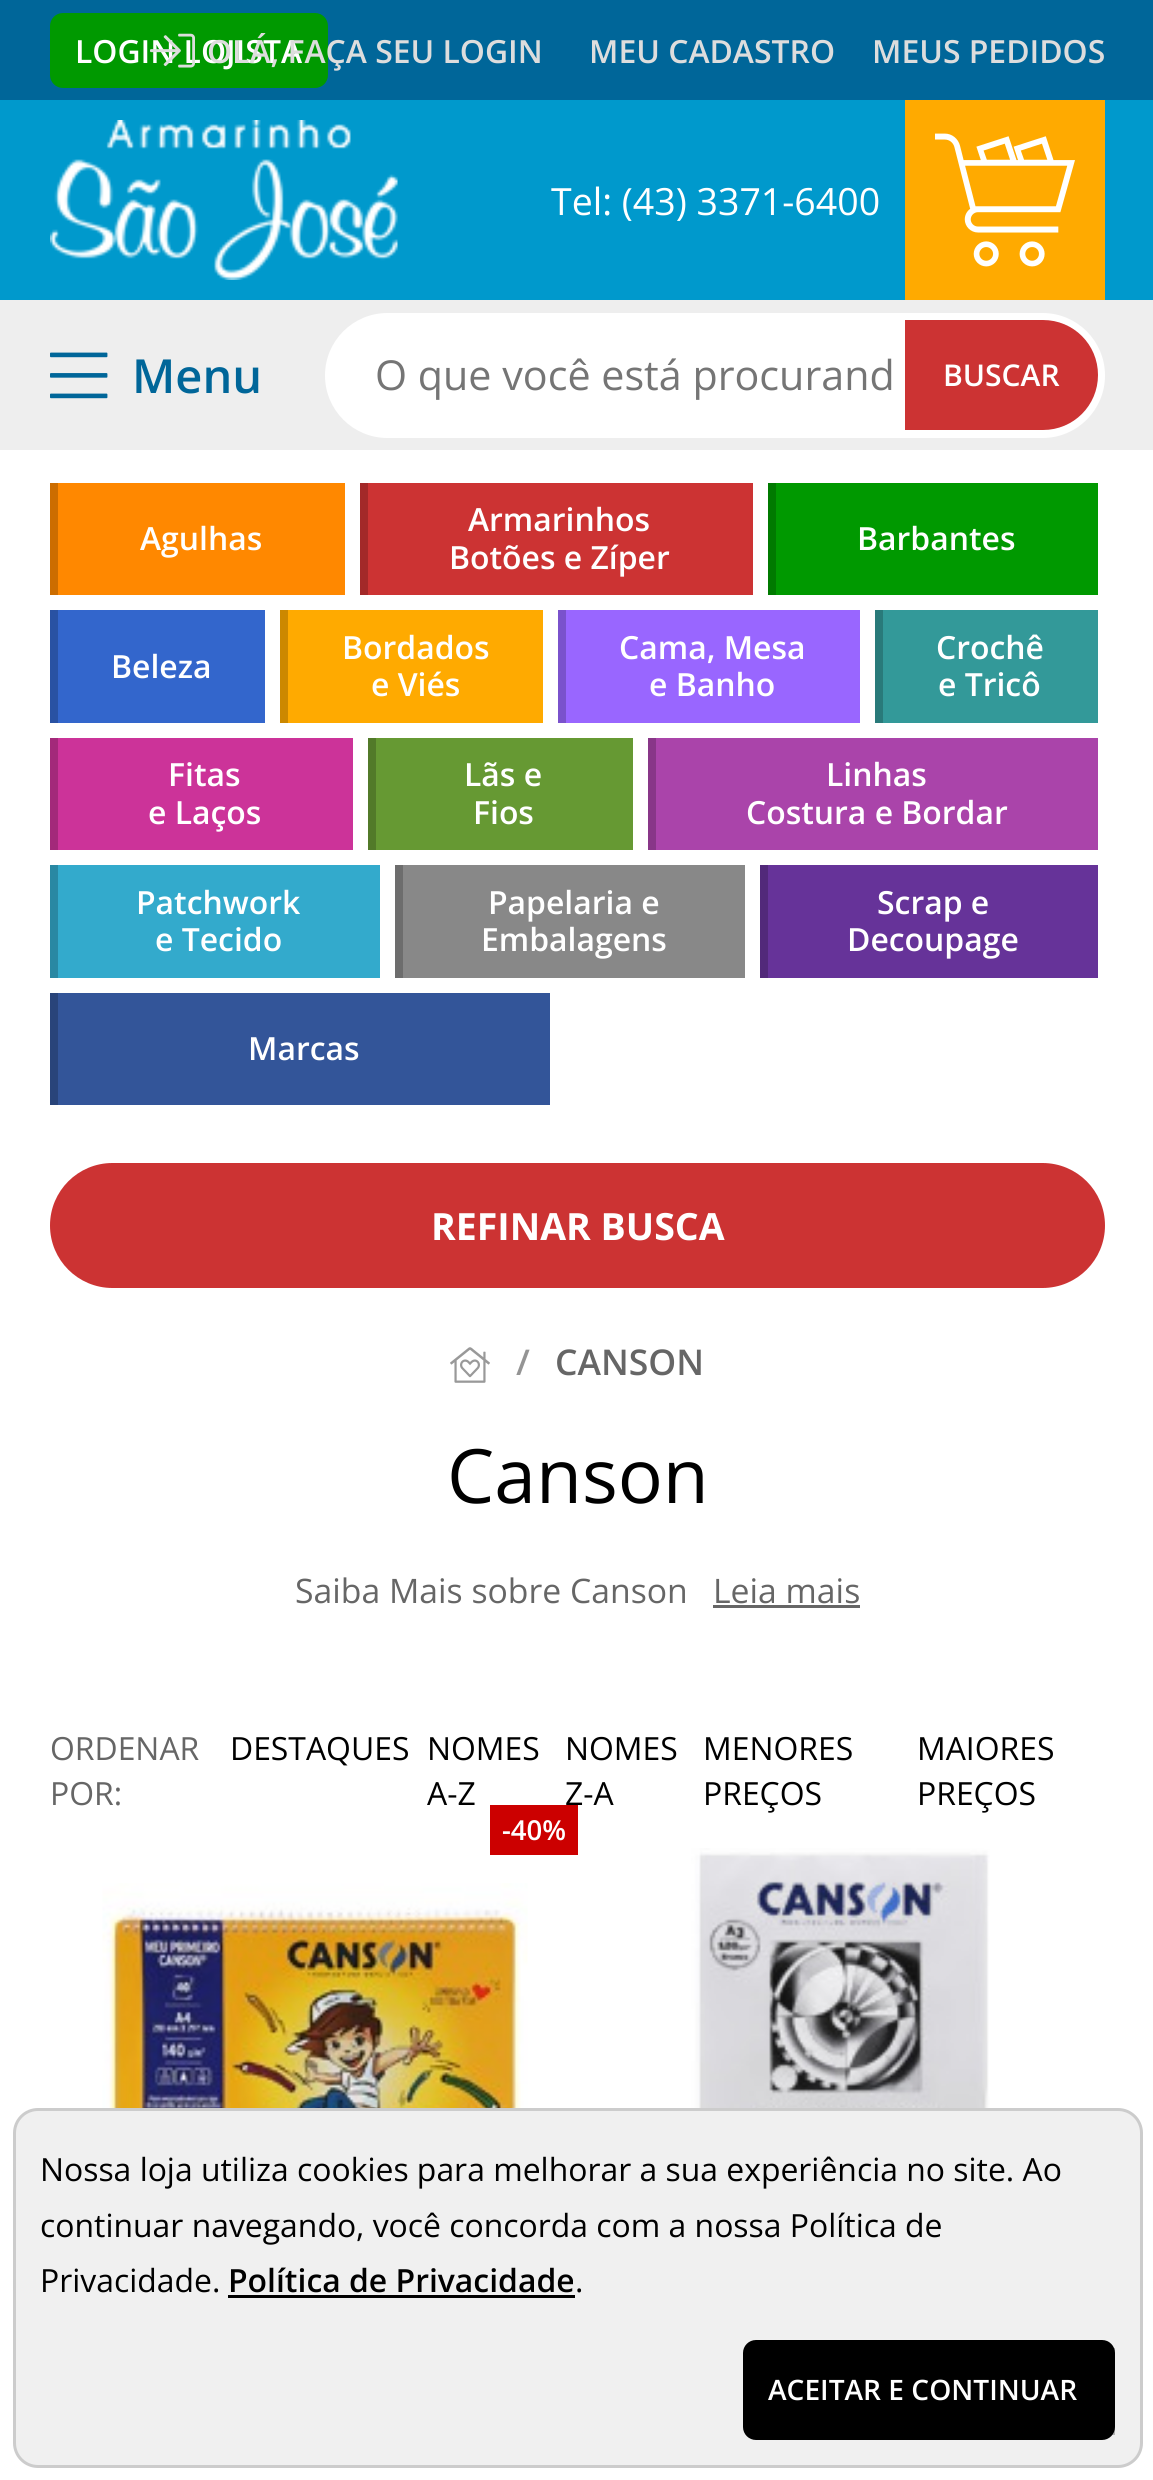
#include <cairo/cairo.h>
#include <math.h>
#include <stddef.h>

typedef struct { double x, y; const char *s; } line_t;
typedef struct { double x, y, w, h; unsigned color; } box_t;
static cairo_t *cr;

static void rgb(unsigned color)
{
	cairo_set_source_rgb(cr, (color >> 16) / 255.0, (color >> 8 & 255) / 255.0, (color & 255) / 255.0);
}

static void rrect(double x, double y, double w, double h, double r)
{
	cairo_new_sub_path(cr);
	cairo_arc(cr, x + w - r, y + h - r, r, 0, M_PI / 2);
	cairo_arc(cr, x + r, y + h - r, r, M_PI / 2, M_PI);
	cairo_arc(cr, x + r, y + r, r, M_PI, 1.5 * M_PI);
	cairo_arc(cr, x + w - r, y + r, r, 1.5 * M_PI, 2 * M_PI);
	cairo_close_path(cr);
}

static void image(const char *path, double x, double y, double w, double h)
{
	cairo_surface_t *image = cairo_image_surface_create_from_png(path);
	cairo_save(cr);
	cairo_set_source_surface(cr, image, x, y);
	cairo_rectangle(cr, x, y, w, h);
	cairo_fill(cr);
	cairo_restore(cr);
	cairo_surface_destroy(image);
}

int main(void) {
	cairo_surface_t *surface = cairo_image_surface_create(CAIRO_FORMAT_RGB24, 1153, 2480);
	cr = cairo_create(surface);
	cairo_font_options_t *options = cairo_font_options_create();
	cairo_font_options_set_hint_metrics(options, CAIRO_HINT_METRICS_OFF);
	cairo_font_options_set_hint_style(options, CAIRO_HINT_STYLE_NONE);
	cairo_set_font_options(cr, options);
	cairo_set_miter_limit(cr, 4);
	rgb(0xffffff);
	cairo_paint(cr);
	{
		static const box_t items[] = {
			{0, 100, 1153, 200, 0x0099cc},
			{0, 0, 1153, 100, 0x006699},
			{0, 300, 1153, 150, 0xeeeeee},
		};
		for (size_t i = 0; i < sizeof items / sizeof *items; i++) {
			rgb(items[i].color);
			cairo_rectangle(cr, items[i].x, items[i].y, items[i].w, items[i].h);
			cairo_fill(cr);
		}
	}
	rgb(0x009900);
	rrect(50, 13, 278, 75, 13);
	cairo_fill(cr);
	rgb(0xffaa00);
	cairo_rectangle(cr, 905, 100, 200, 200);
	cairo_fill(cr);
	image("img/2.png", 935, 133, 140, 134);
	image("img/3.png", 50, 120, 348, 160);
	image("img/4.png", 50, 352, 58, 47);
	rgb(0xffffff);
	rrect(325, 313, 780, 125, 62.5);
	cairo_fill(cr);
	rgb(0xcc3333);
	cairo_new_path(cr);
	cairo_move_to(cr, 905, 320);
	cairo_line_to(cr, 1043, 320);
	cairo_curve_to(cr, 1073.5, 320, 1098, 344.5, 1098, 375);
	cairo_curve_to(cr, 1098, 405.5, 1073.5, 430, 1043, 430);
	cairo_line_to(cr, 905, 430);
	cairo_close_path(cr);
	cairo_fill(cr);
	{
		static const box_t items[] = {
			{58, 483, 287, 112, 0xff8800},
			{50, 483, 8, 112, 0xcc6d00},
			{368, 483, 385, 112, 0xcc3333},
			{360, 483, 8, 112, 0xa32929},
			{776, 483, 322, 112, 0x009900},
			{768, 483, 8, 112, 0x007a00},
			{58, 610, 207, 113, 0x3366cc},
			{50, 610, 8, 113, 0x2952a3},
			{288, 610, 255, 113, 0xffaa00},
			{280, 610, 8, 113, 0xcc8800},
			{566, 610, 294, 113, 0x9966ff},
			{558, 610, 8, 113, 0x7a52cc},
			{883, 610, 215, 113, 0x339999},
			{875, 610, 8, 113, 0x297a7a},
			{58, 738, 295, 112, 0xcc3399},
			{50, 738, 8, 112, 0xa3297a},
			{376, 738, 257, 112, 0x669933},
			{368, 738, 8, 112, 0x527a29},
			{656, 738, 442, 112, 0xaa44aa},
			{648, 738, 8, 112, 0x883688},
			{58, 865, 322, 113, 0x33aacc},
			{50, 865, 8, 113, 0x2988a3},
			{403, 865, 342, 113, 0x888888},
			{395, 865, 8, 113, 0x6d6d6d},
			{768, 865, 330, 113, 0x663399},
			{760, 865, 8, 113, 0x52297a},
			{58, 993, 492, 112, 0x335599},
			{50, 993, 8, 112, 0x29447a},
		};
		for (size_t i = 0; i < sizeof items / sizeof *items; i++) {
			rgb(items[i].color);
			cairo_rectangle(cr, items[i].x, items[i].y, items[i].w, items[i].h);
			cairo_fill(cr);
		}
	}
	rgb(0xcc3333);
	rrect(50, 1163, 1055, 125, 62.5);
	cairo_fill(cr);
	image("img/5.png", 450, 1347, 40, 36);
	rgb(0x666666);
	cairo_rectangle(cr, 713, 1605, 147, 3);
	cairo_fill(cr);
	rgb(0xcc0000);
	cairo_rectangle(cr, 490, 1805, 88, 50);
	cairo_fill(cr);
	image("img/6.png", 102, 1883, 426, 225);
	image("img/7.png", 691, 1848, 299, 260);
	rgb(0xf0f0f0);
	rrect(14.5, 2109.5, 1127, 357, 23.5);
	cairo_fill_preserve(cr);
	rgb(0xcccccc);
	cairo_set_line_width(cr, 3);
	cairo_stroke(cr);
	rgb(0x000000);
	cairo_rectangle(cr, 228, 2295, 347, 3);
	cairo_fill(cr);
	rrect(743, 2340, 372, 100, 13);
	cairo_fill(cr);
	cairo_set_source_rgba(cr, 0, 0, 0, 0.25);
	cairo_rectangle(cr, 1112, 2348, 3, 87);
	cairo_fill(cr);
	cairo_select_font_face(cr, "Open Sans SemiBold", CAIRO_FONT_SLANT_NORMAL, CAIRO_FONT_WEIGHT_NORMAL);
	cairo_set_font_size(cr, 31.9);
	rgb(0xffffff);
	cairo_move_to(cr, 75, 63);
	cairo_show_text(cr, "LOGIN LOJISTA");
	rgb(0xdddddd);
	cairo_move_to(cr, 207, 63);
	cairo_show_text(cr, "OLÁ, FAÇA SEU LOGIN");
	image("img/1.png", 150, 33, 45, 35);
	cairo_move_to(cr, 589, 63);
	cairo_show_text(cr, "MEU CADASTRO");
	cairo_move_to(cr, 872, 63);
	cairo_show_text(cr, "MEUS PEDIDOS");
	cairo_select_font_face(cr, "Open Sans", CAIRO_FONT_SLANT_NORMAL, CAIRO_FONT_WEIGHT_NORMAL);
	cairo_set_font_size(cr, 37.5);
	rgb(0xffffff);
	cairo_move_to(cr, 551, 215);
	cairo_show_text(cr, "Tel: (43) 3371-6400");
	cairo_select_font_face(cr, "Open Sans SemiBold", CAIRO_FONT_SLANT_NORMAL, CAIRO_FONT_WEIGHT_NORMAL);
	cairo_set_font_size(cr, 47);
	rgb(0x006699);
	cairo_move_to(cr, 132, 393);
	cairo_show_text(cr, "Menu");
	cairo_select_font_face(cr, "Open Sans", CAIRO_FONT_SLANT_NORMAL, CAIRO_FONT_WEIGHT_NORMAL);
	cairo_set_font_size(cr, 41.25);
	rgb(0x757575);
	cairo_move_to(cr, 375, 390);
	cairo_show_text(cr, "O que você está procurand");
	cairo_select_font_face(cr, "Open Sans SemiBold", CAIRO_FONT_SLANT_NORMAL, CAIRO_FONT_WEIGHT_NORMAL);
	cairo_set_font_size(cr, 30);
	rgb(0xffffff);
	cairo_move_to(cr, 943, 386);
	cairo_show_text(cr, "BUSCAR");
	cairo_set_font_size(cr, 31.9);
	{
		static const line_t items[] = {
			{140, 550, "Agulhas"},
			{468, 531, "Armarinhos"},
			{449, 569, "Botões e Zíper"},
			{857, 550, "Barbantes"},
			{111, 678, "Beleza"},
			{342, 659, "Bordados"},
			{371, 696, "e Viés"},
			{619, 659, "Cama, Mesa"},
			{649, 696, "e Banho"},
			{936, 659, "Crochê"},
			{938, 696, "e Tricô"},
			{168, 786, "Fitas"},
			{148, 824, "e Laços"},
			{464, 786, "Lãs e"},
			{473, 824, "Fios"},
			{826, 786, "Linhas"},
			{746, 824, "Costura e Bordar"},
			{136, 914, "Patchwork"},
			{155, 951, "e Tecido"},
			{488, 914, "Papelaria e"},
			{481, 951, "Embalagens"},
			{877, 914, "Scrap e"},
			{847, 951, "Decoupage"},
			{248, 1060, "Marcas"},
		};
		for (size_t i = 0; i < sizeof items / sizeof *items; i++) {
			cairo_move_to(cr, items[i].x, items[i].y);
			cairo_show_text(cr, items[i].s);
		}
	}
	cairo_select_font_face(cr, "Open Sans", CAIRO_FONT_SLANT_NORMAL, CAIRO_FONT_WEIGHT_BOLD);
	cairo_set_font_size(cr, 37.5);
	cairo_move_to(cr, 431, 1240);
	cairo_show_text(cr, "REFINAR BUSCA");
	cairo_select_font_face(cr, "Open Sans SemiBold", CAIRO_FONT_SLANT_NORMAL, CAIRO_FONT_WEIGHT_NORMAL);
	cairo_set_font_size(cr, 35.5);
	rgb(0x949494);
	cairo_move_to(cr, 516, 1375);
	cairo_show_text(cr, "/");
	rgb(0x666666);
	cairo_move_to(cr, 555, 1375);
	cairo_show_text(cr, "CANSON");
	cairo_select_font_face(cr, "Open Sans", CAIRO_FONT_SLANT_NORMAL, CAIRO_FONT_WEIGHT_NORMAL);
	cairo_set_font_size(cr, 75);
	rgb(0x000000);
	cairo_move_to(cr, 447, 1503);
	cairo_show_text(cr, "Canson");
	cairo_set_font_size(cr, 33.75);
	rgb(0x666666);
	cairo_move_to(cr, 295, 1603);
	cairo_show_text(cr, "Saiba Mais sobre Canson");
	cairo_move_to(cr, 713, 1603);
	cairo_show_text(cr, "Leia mais");
	cairo_set_font_size(cr, 31.9);
	cairo_move_to(cr, 50, 1760);
	cairo_show_text(cr, "ORDENAR");
	cairo_move_to(cr, 50, 1805);
	cairo_show_text(cr, "POR:");
	rgb(0x000000);
	{
		static const line_t items[] = {
			{230, 1760, "DESTAQUES"},
			{427, 1760, "NOMES"},
			{427, 1805, "A-Z"},
			{565, 1760, "NOMES"},
			{565, 1805, "Z-A"},
			{703, 1760, "MENORES"},
			{703, 1805, "PREÇOS"},
			{917, 1760, "MAIORES"},
			{917, 1805, "PREÇOS"},
		};
		for (size_t i = 0; i < sizeof items / sizeof *items; i++) {
			cairo_move_to(cr, items[i].x, items[i].y);
			cairo_show_text(cr, items[i].s);
		}
	}
	cairo_select_font_face(cr, "Open Sans SemiBold", CAIRO_FONT_SLANT_NORMAL, CAIRO_FONT_WEIGHT_NORMAL);
	cairo_set_font_size(cr, 27.5);
	rgb(0xffffff);
	cairo_move_to(cr, 502, 1840);
	cairo_show_text(cr, "-40%");
	cairo_select_font_face(cr, "Open Sans", CAIRO_FONT_SLANT_NORMAL, CAIRO_FONT_WEIGHT_NORMAL);
	cairo_set_font_size(cr, 31.9);
	rgb(0x000000);
	{
		static const line_t items[] = {
			{40, 2181, "Nossa loja utiliza cookies para melhorar a sua experiência no site. Ao"},
			{40, 2237, "continuar navegando, você concorda com a nossa Política de"},
			{40, 2292, "Privacidade."},
		};
		for (size_t i = 0; i < sizeof items / sizeof *items; i++) {
			cairo_move_to(cr, items[i].x, items[i].y);
			cairo_show_text(cr, items[i].s);
		}
	}
	cairo_select_font_face(cr, "Open Sans SemiBold", CAIRO_FONT_SLANT_NORMAL, CAIRO_FONT_WEIGHT_NORMAL);
	cairo_move_to(cr, 228, 2292);
	cairo_show_text(cr, "Política de Privacidade");
	cairo_select_font_face(cr, "Open Sans", CAIRO_FONT_SLANT_NORMAL, CAIRO_FONT_WEIGHT_NORMAL);
	cairo_move_to(cr, 575, 2292);
	cairo_show_text(cr, ".");
	cairo_select_font_face(cr, "Open Sans SemiBold", CAIRO_FONT_SLANT_NORMAL, CAIRO_FONT_WEIGHT_NORMAL);
	cairo_set_font_size(cr, 28.1);
	rgb(0xffffff);
	cairo_move_to(cr, 768, 2400);
	cairo_show_text(cr, "ACEITAR E CONTINUAR");
	cairo_surface_write_to_png(surface, "page.png");
	cairo_font_options_destroy(options);
	cairo_destroy(cr);
	cairo_surface_destroy(surface);
	return 0;
}
